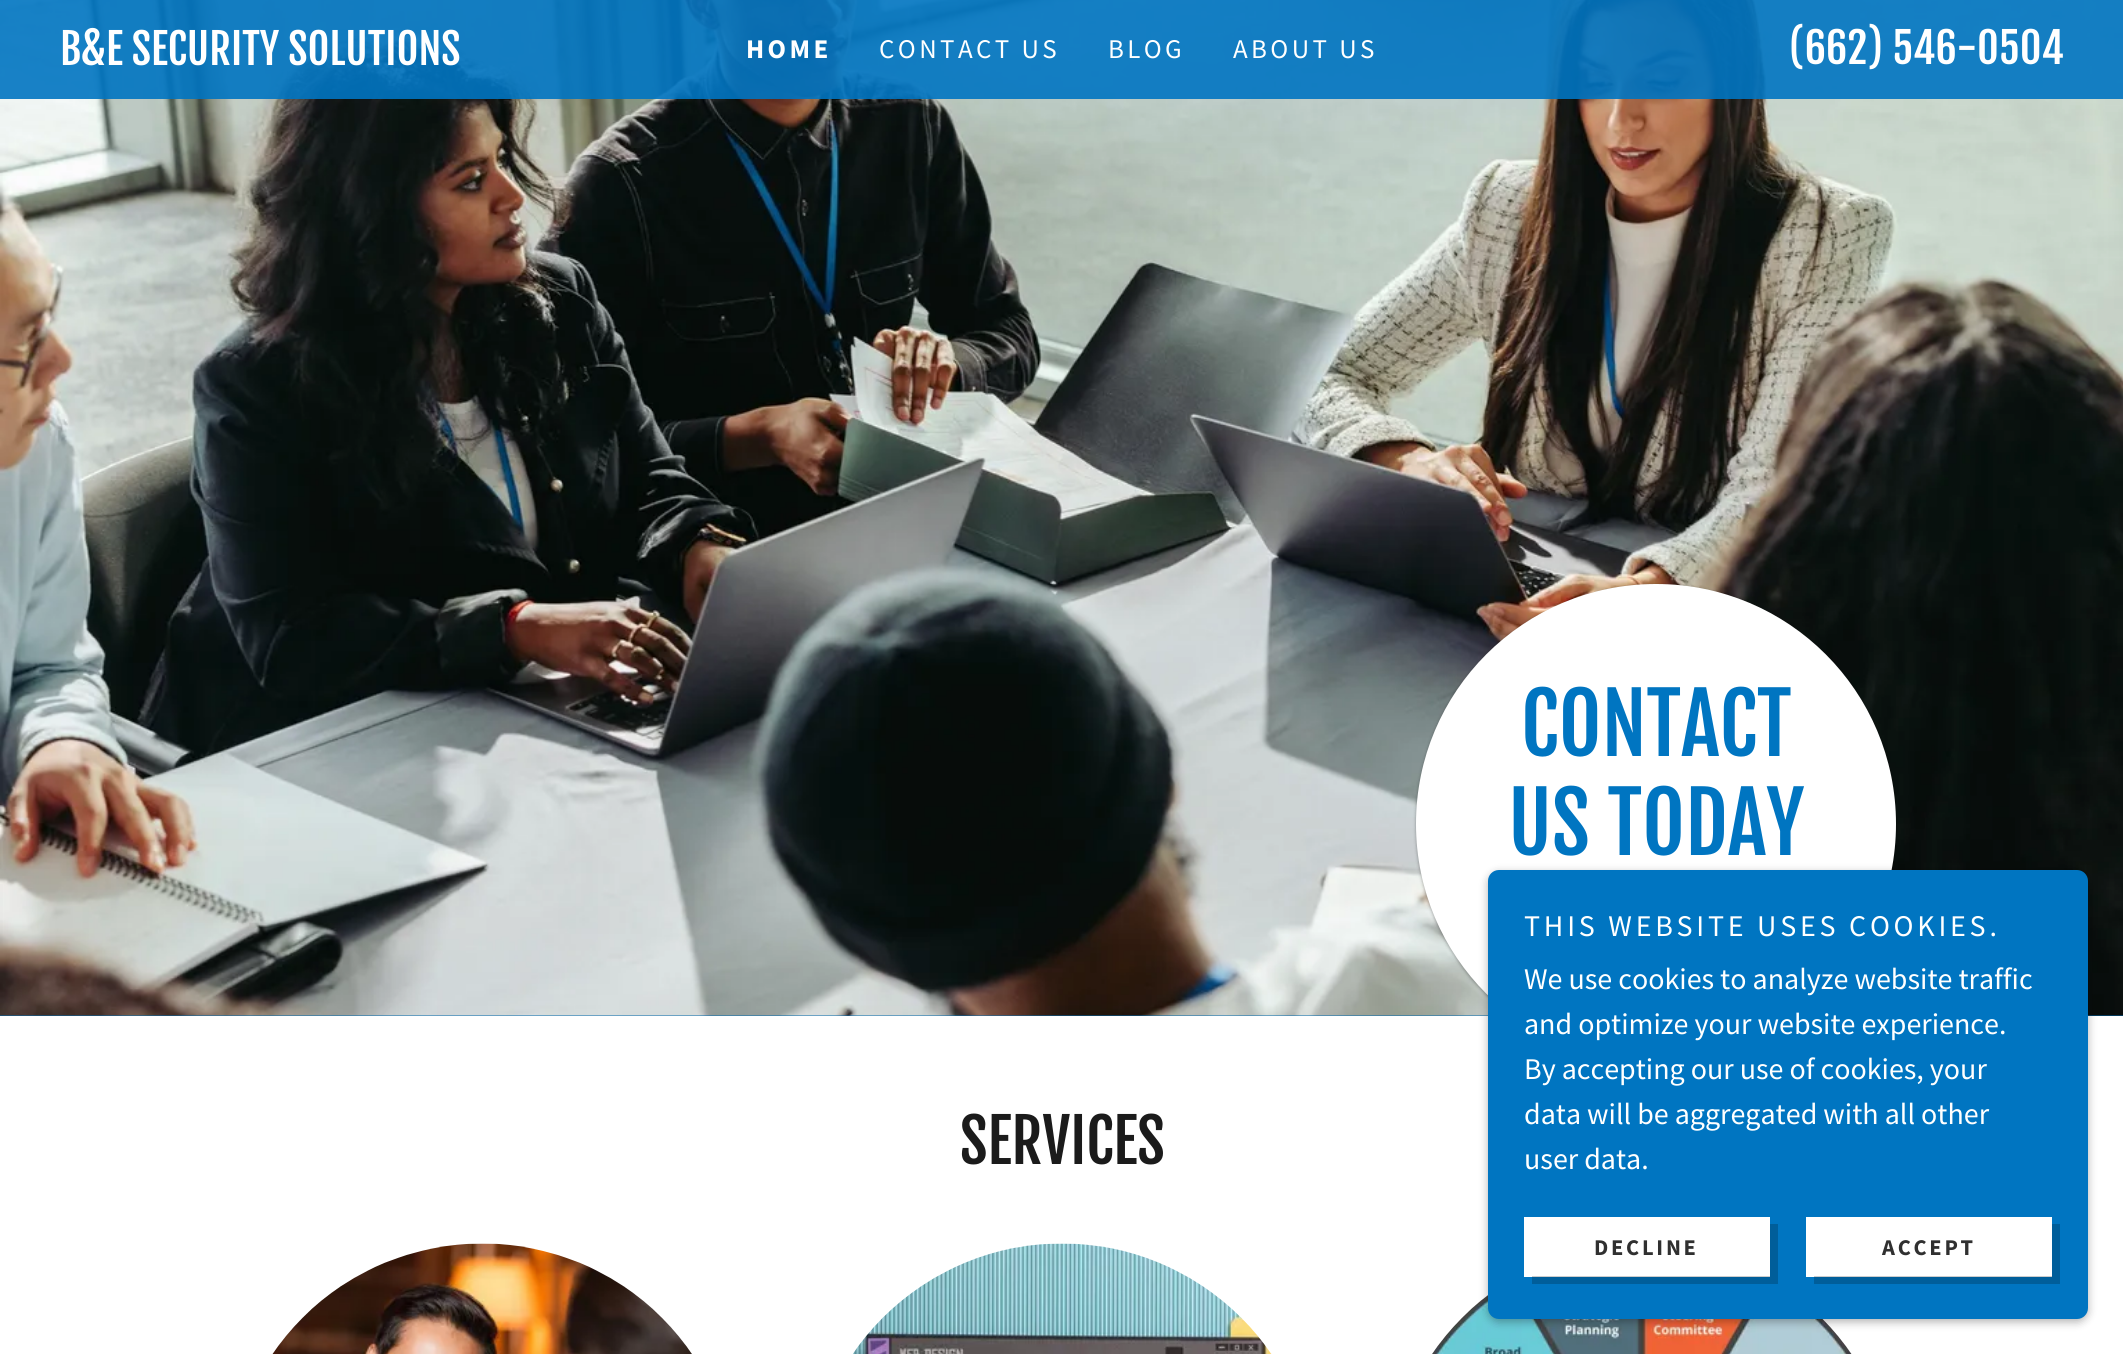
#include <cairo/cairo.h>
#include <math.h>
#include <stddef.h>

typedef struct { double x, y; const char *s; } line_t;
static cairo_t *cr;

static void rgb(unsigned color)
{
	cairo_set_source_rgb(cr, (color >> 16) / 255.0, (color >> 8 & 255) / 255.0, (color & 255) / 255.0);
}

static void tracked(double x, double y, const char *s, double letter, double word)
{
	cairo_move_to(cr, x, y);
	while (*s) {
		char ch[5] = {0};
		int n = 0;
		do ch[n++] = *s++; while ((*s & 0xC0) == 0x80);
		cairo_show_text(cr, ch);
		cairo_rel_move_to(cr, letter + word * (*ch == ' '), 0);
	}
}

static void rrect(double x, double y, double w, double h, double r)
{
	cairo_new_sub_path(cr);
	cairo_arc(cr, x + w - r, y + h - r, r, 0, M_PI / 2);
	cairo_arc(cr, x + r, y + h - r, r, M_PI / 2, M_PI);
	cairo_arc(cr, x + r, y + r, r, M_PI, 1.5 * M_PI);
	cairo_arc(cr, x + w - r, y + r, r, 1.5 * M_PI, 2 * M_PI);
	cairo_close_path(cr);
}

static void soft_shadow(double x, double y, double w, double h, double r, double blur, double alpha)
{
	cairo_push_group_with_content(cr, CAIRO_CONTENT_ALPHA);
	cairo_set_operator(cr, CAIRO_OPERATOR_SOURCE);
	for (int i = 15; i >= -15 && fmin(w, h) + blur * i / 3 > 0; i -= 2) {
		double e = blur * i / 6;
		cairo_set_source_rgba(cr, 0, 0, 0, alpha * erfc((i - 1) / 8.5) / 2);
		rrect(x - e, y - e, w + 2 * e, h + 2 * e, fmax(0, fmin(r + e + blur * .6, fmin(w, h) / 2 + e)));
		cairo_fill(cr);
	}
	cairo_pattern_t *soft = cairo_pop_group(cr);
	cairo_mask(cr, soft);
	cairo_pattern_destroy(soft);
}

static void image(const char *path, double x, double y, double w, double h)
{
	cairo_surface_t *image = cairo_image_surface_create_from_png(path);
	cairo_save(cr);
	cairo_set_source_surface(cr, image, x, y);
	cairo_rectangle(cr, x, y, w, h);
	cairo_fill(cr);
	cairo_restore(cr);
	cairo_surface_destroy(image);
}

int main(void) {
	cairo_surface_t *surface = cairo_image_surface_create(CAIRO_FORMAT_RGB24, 2123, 1354);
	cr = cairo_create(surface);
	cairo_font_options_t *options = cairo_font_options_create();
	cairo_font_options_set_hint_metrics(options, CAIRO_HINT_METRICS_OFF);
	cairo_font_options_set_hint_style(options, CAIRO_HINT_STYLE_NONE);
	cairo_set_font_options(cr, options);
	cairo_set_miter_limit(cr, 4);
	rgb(0x0068ad);
	cairo_paint(cr);
	image("img/1.png", 0, 0, 2123, 1016);
	cairo_set_source_rgba(cr, 0, 0.459, 0.757, 0.9);
	cairo_rectangle(cr, 0, 0, 2123, 99);
	cairo_fill(cr);
	rgb(0xffffff);
	cairo_rectangle(cr, 0, 1016, 2123, 338);
	cairo_fill(cr);
	rgb(0x000000);
	soft_shadow(1416, 585, 480, 480, 240, 1.5, 0.24);
	soft_shadow(1416, 585, 480, 480, 240, 2, 0.12);
	rgb(0xffffff);
	cairo_arc(cr, 1656, 824, 240, 0, 2 * M_PI);
	cairo_fill(cr);
	image("img/2.png", 272, 1243, 420, 111);
	image("img/3.png", 853, 1243, 419, 111);
	image("img/4.png", 1432, 1295, 420, 59);
	rgb(0x000000);
	soft_shadow(1488, 873, 600, 449, 11, 4.5, 0.3);
	rgb(0x0075c1);
	rrect(1488, 870, 600, 449, 11);
	cairo_fill(cr);
	rgb(0xffffff);
	cairo_rectangle(cr, 1524, 1217, 246, 60);
	cairo_fill(cr);
	cairo_set_source_rgba(cr, 0, 0, 0, 0.2);
	cairo_new_path(cr);
	cairo_move_to(cr, 1532, 1276);
	cairo_line_to(cr, 1532, 1284);
	cairo_line_to(cr, 1778, 1284);
	cairo_line_to(cr, 1778, 1224);
	cairo_line_to(cr, 1770, 1224);
	cairo_line_to(cr, 1770, 1276);
	cairo_close_path(cr);
	cairo_fill(cr);
	rgb(0xffffff);
	cairo_rectangle(cr, 1806, 1217, 246, 60);
	cairo_fill(cr);
	cairo_set_source_rgba(cr, 0, 0, 0, 0.2);
	cairo_new_path(cr);
	cairo_move_to(cr, 1814, 1276);
	cairo_line_to(cr, 1814, 1284);
	cairo_line_to(cr, 2060, 1284);
	cairo_line_to(cr, 2060, 1224);
	cairo_line_to(cr, 2052, 1224);
	cairo_line_to(cr, 2052, 1276);
	cairo_close_path(cr);
	cairo_fill(cr);
	cairo_select_font_face(cr, "Fjalla One", CAIRO_FONT_SLANT_NORMAL, CAIRO_FONT_WEIGHT_NORMAL);
	cairo_set_font_size(cr, 42);
	rgb(0xffffff);
	cairo_move_to(cr, 60, 65);
	cairo_show_text(cr, "B&E SECURITY SOLUTIONS");
	cairo_select_font_face(cr, "Source Sans Pro", CAIRO_FONT_SLANT_NORMAL, CAIRO_FONT_WEIGHT_BOLD);
	cairo_set_font_size(cr, 27);
	tracked(746, 58, "HOME", 3.4, 0);
	cairo_select_font_face(cr, "Source Sans Pro", CAIRO_FONT_SLANT_NORMAL, CAIRO_FONT_WEIGHT_NORMAL);
	{
		static const line_t items[] = {
			{879, 58, "CONTACT US"},
			{1108, 58, "BLOG"},
			{1233, 58, "ABOUT US"},
		};
		for (size_t i = 0; i < sizeof items / sizeof *items; i++) {
			tracked(items[i].x, items[i].y, items[i].s, 3.4, 0);
		}
	}
	cairo_select_font_face(cr, "Fjalla One", CAIRO_FONT_SLANT_NORMAL, CAIRO_FONT_WEIGHT_NORMAL);
	cairo_set_font_size(cr, 42);
	cairo_move_to(cr, 1789, 64);
	cairo_show_text(cr, "(662) 546-0504");
	cairo_set_font_size(cr, 82.5);
	rgb(0x0075c1);
	cairo_move_to(cr, 1521, 756);
	cairo_show_text(cr, "CONTACT");
	cairo_move_to(cr, 1508, 855);
	cairo_show_text(cr, "US TODAY");
	cairo_set_font_size(cr, 60);
	rgb(0x1b1b1b);
	cairo_move_to(cr, 960, 1164);
	cairo_show_text(cr, "SERVICES");
	cairo_select_font_face(cr, "Source Sans Pro", CAIRO_FONT_SLANT_NORMAL, CAIRO_FONT_WEIGHT_NORMAL);
	cairo_set_font_size(cr, 30);
	rgb(0xffffff);
	tracked(1524, 936, "THIS WEBSITE USES COOKIES.", 3.75, 0);
	{
		static const line_t items[] = {
			{1524, 989, "We use cookies to analyze website traffic"},
			{1524, 1034, "and optimize your website experience."},
			{1524, 1079, "By accepting our use of cookies, your"},
			{1524, 1124, "data will be aggregated with all other"},
			{1524, 1169, "user data."},
		};
		for (size_t i = 0; i < sizeof items / sizeof *items; i++) {
			cairo_move_to(cr, items[i].x, items[i].y);
			cairo_show_text(cr, items[i].s);
		}
	}
	cairo_select_font_face(cr, "Source Sans Pro", CAIRO_FONT_SLANT_NORMAL, CAIRO_FONT_WEIGHT_BOLD);
	cairo_set_font_size(cr, 22.5);
	rgb(0x303030);
	tracked(1594, 1255, "DECLINE", 2.75, 0);
	tracked(1882, 1255, "ACCEPT", 2.75, 0);
	cairo_surface_write_to_png(surface, "page.png");
	cairo_font_options_destroy(options);
	cairo_destroy(cr);
	cairo_surface_destroy(surface);
	return 0;
}
